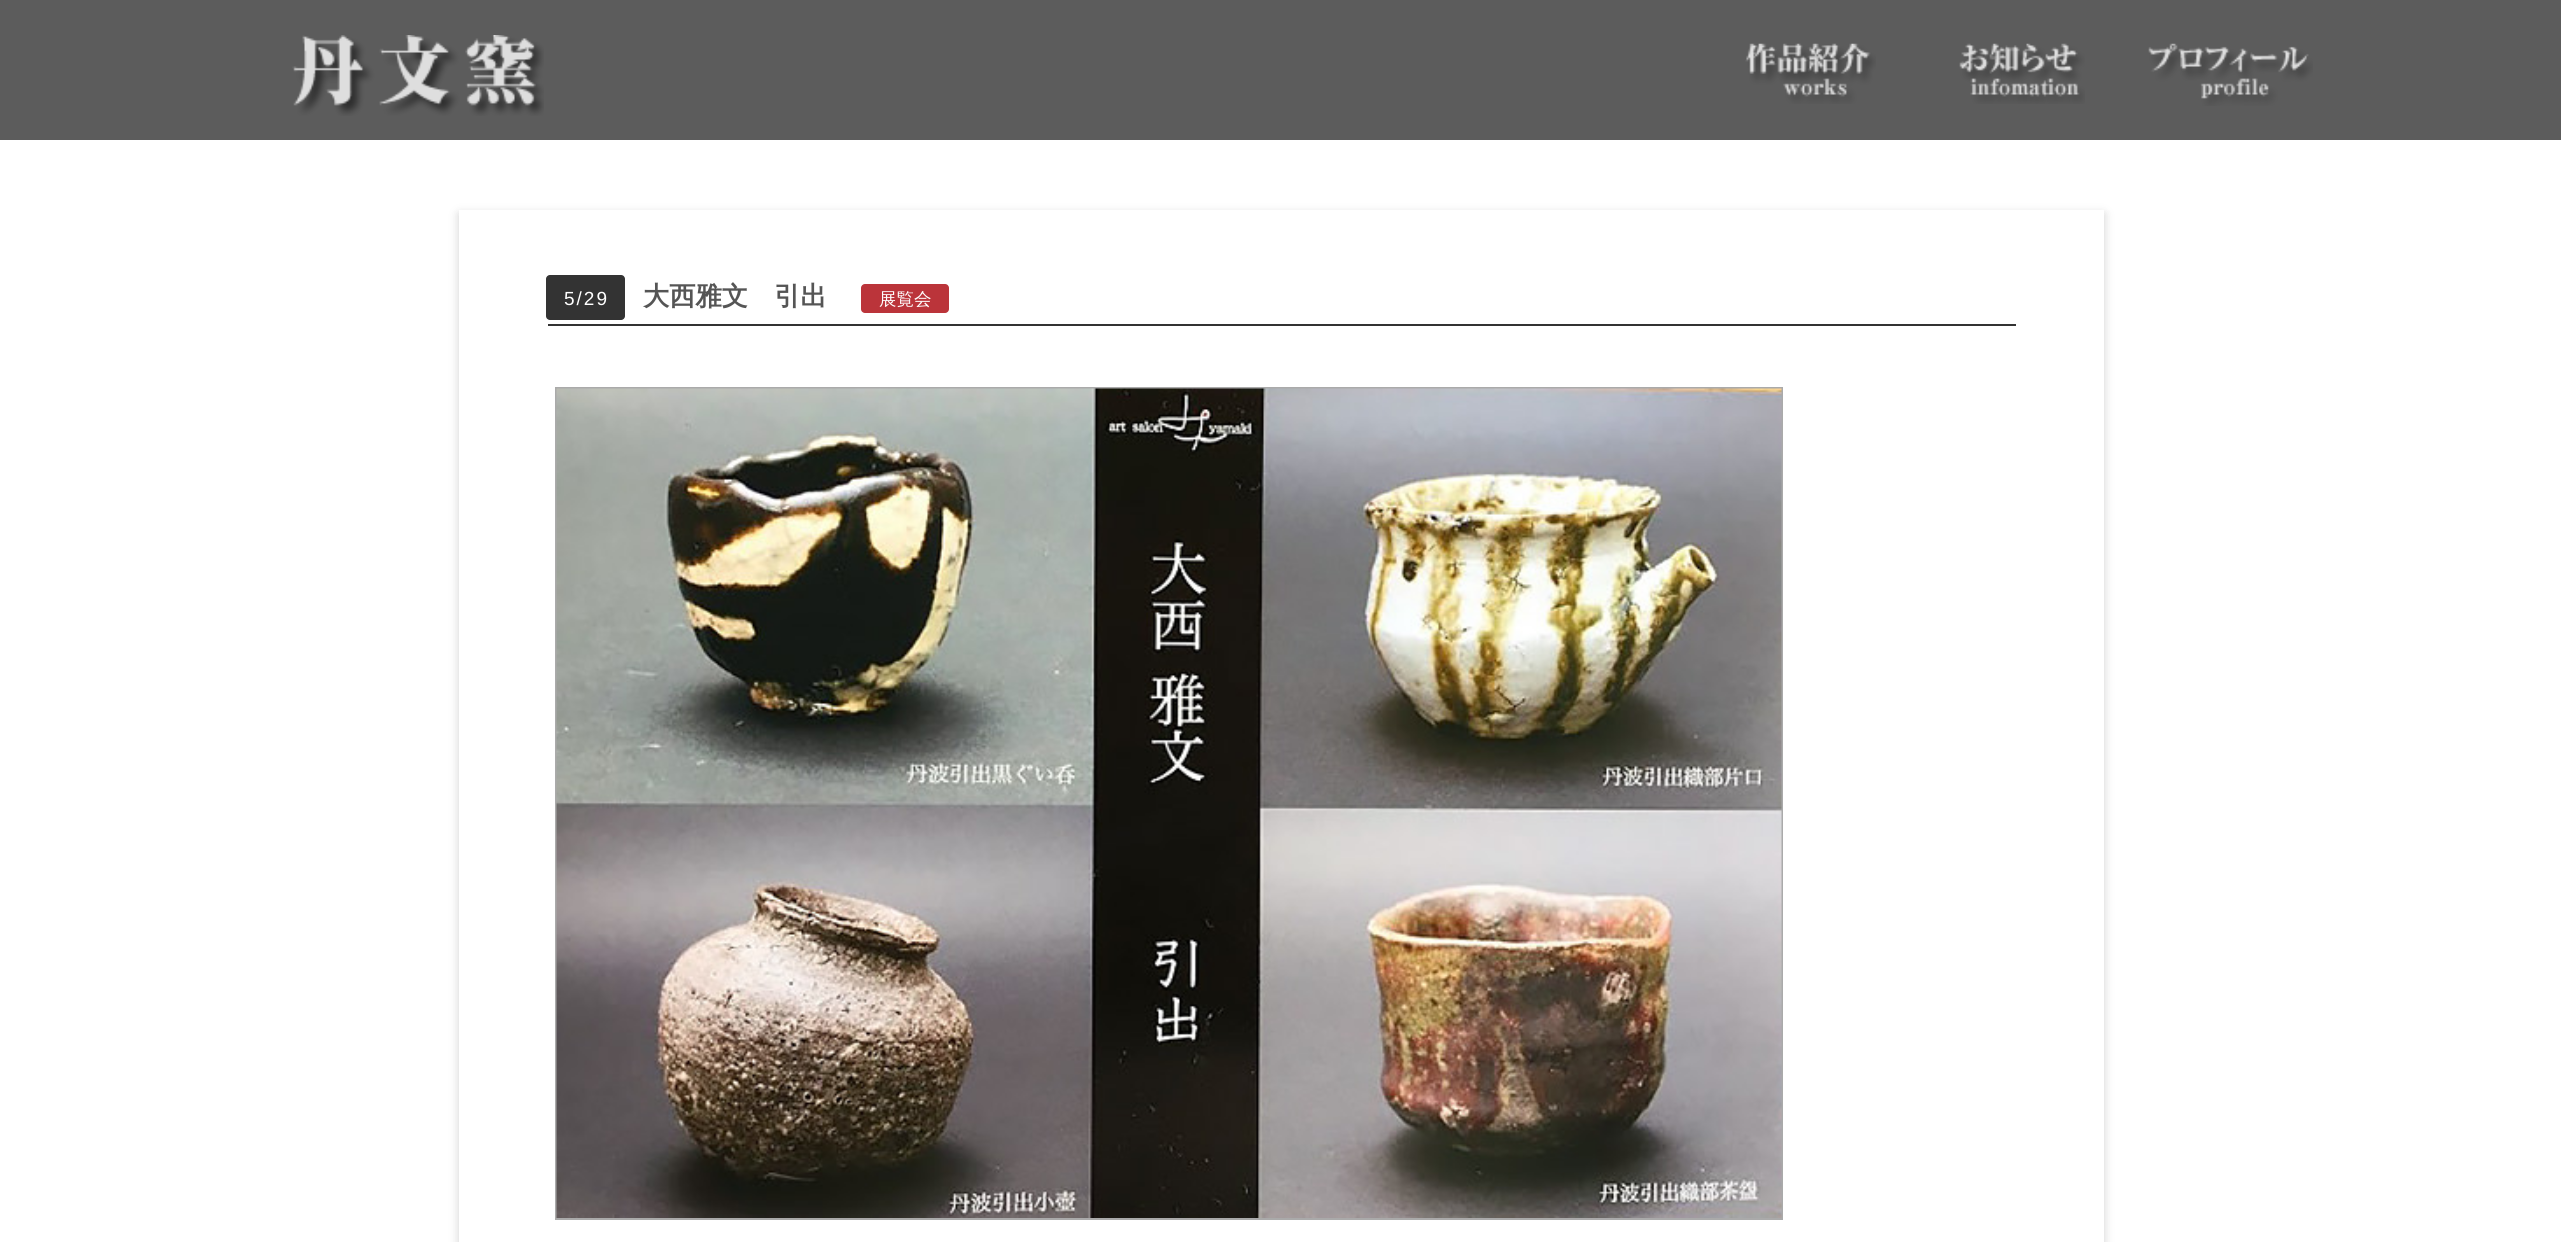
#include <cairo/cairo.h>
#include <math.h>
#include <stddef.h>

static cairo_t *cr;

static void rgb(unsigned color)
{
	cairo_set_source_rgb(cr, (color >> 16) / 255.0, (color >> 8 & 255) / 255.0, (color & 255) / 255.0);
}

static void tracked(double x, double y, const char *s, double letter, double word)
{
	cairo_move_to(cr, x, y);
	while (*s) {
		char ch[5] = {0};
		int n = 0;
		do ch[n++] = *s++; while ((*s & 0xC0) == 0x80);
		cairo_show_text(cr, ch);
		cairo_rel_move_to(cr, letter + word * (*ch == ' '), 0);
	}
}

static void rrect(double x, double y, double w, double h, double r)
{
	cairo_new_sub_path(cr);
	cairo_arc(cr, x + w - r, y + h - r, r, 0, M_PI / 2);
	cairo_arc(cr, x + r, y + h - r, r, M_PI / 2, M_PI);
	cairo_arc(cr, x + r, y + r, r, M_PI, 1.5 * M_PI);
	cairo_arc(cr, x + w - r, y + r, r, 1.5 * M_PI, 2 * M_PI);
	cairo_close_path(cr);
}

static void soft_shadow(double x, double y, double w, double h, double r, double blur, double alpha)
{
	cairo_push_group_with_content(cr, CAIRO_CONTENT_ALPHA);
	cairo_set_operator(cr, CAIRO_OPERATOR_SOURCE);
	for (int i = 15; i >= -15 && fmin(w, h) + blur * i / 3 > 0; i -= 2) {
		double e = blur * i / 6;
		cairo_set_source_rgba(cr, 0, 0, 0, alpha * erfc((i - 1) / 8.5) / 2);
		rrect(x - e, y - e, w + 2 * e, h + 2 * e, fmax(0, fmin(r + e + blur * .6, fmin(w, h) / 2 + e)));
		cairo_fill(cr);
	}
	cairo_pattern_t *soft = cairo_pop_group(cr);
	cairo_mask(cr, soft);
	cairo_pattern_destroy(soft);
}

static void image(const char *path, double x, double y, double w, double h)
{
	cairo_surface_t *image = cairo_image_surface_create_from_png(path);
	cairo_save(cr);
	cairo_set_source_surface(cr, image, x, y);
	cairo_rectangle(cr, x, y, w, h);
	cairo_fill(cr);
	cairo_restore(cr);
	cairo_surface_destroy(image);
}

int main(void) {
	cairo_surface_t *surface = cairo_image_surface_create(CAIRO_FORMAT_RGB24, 2561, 1242);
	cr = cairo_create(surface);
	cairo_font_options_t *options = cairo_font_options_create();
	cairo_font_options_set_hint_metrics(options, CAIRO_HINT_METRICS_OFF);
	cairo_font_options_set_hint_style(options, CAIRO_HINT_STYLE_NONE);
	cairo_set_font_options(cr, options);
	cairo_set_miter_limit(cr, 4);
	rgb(0xffffff);
	cairo_paint(cr);
	rgb(0x5c5c5c);
	cairo_rectangle(cr, 0, 0, 2561, 140);
	cairo_fill(cr);
	image("img/1.png", 292, 35, 252, 81);
	image("img/2.png", 1745, 43, 131, 61);
	image("img/3.png", 1959, 43, 126, 61);
	image("img/4.png", 2148, 43, 165, 63);
	rgb(0x646464);
	soft_shadow(459, 214, 1645, 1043, 0, 5, 0.3);
	rgb(0xffffff);
	cairo_rectangle(cr, 459, 210, 1645, 1032);
	cairo_fill(cr);
	rgb(0x333333);
	cairo_rectangle(cr, 548, 324, 1468, 2);
	cairo_fill(cr);
	rrect(546, 275, 79, 45, 4);
	cairo_fill(cr);
	rgb(0xbb343a);
	rrect(861, 284, 88, 29, 4);
	cairo_fill(cr);
	cairo_rectangle(cr, 556, 388, 1226, 831);
	rgb(0xaaaaaa);
	cairo_stroke(cr);
	image("img/5.png", 556, 388, 1226, 830);
	cairo_select_font_face(cr, "Liberation Sans", CAIRO_FONT_SLANT_NORMAL, CAIRO_FONT_WEIGHT_NORMAL);
	cairo_set_font_size(cr, 19);
	rgb(0xffffff);
	tracked(564, 305, "5/29", 2, 0);
	cairo_select_font_face(cr, "WenQuanYi Zen Hei", CAIRO_FONT_SLANT_NORMAL, CAIRO_FONT_WEIGHT_BOLD);
	cairo_set_font_size(cr, 26.25);
	rgb(0x555555);
	cairo_move_to(cr, 643, 305);
	cairo_show_text(cr, "大西雅文　引出");
	cairo_select_font_face(cr, "WenQuanYi Zen Hei Medium", CAIRO_FONT_SLANT_NORMAL, CAIRO_FONT_WEIGHT_NORMAL);
	cairo_set_font_size(cr, 17.5);
	rgb(0xffffff);
	cairo_move_to(cr, 879, 305);
	cairo_show_text(cr, "展覧会");
	cairo_surface_write_to_png(surface, "page.png");
	cairo_font_options_destroy(options);
	cairo_destroy(cr);
	cairo_surface_destroy(surface);
	return 0;
}
